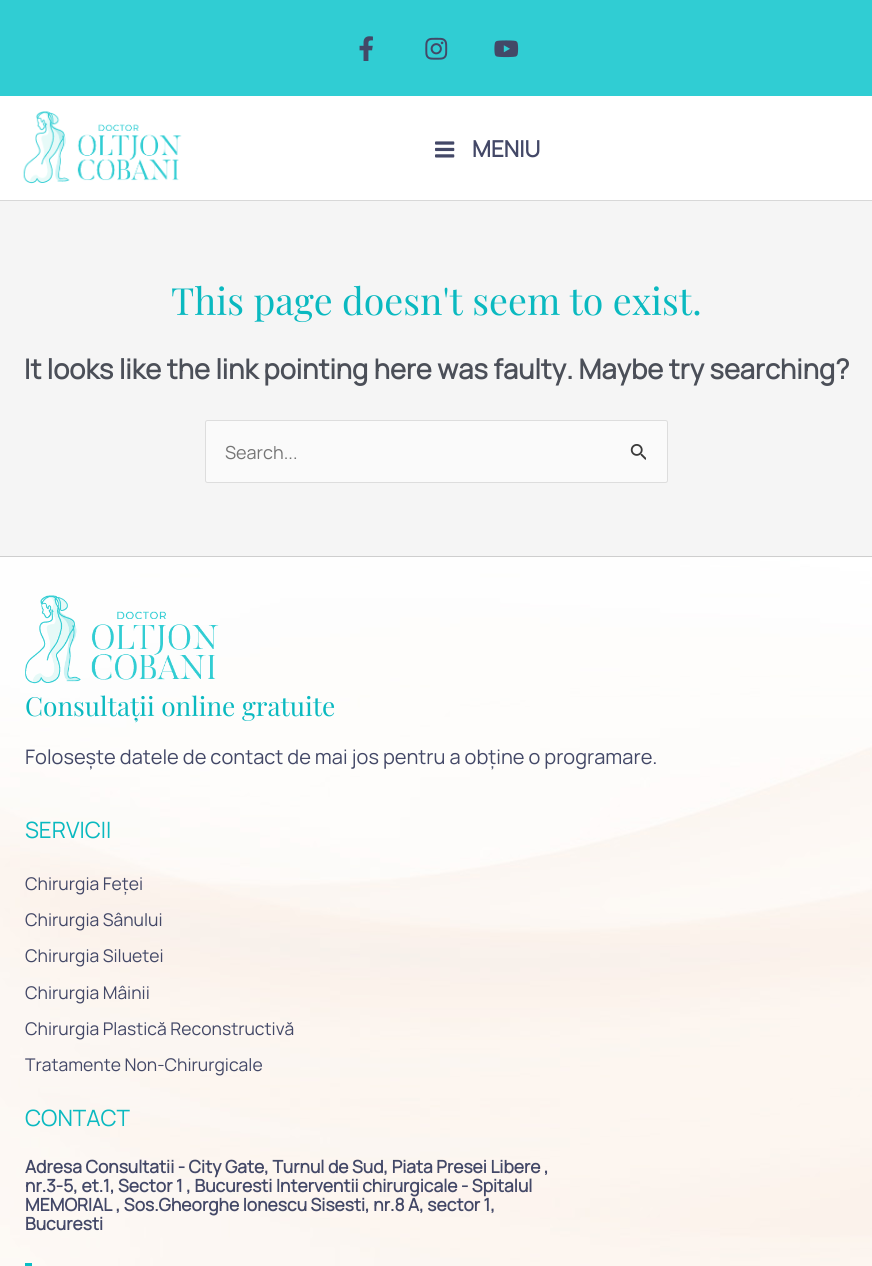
#include <cairo/cairo.h>
#include <math.h>
#include <stddef.h>

typedef struct { double x, y; const char *s; } line_t;
static cairo_t *cr;

static void rgb(unsigned color)
{
	cairo_set_source_rgb(cr, (color >> 16) / 255.0, (color >> 8 & 255) / 255.0, (color & 255) / 255.0);
}

static void rrect(double x, double y, double w, double h, double r)
{
	cairo_new_sub_path(cr);
	cairo_arc(cr, x + w - r, y + h - r, r, 0, M_PI / 2);
	cairo_arc(cr, x + r, y + h - r, r, M_PI / 2, M_PI);
	cairo_arc(cr, x + r, y + r, r, M_PI, 1.5 * M_PI);
	cairo_arc(cr, x + w - r, y + r, r, 1.5 * M_PI, 2 * M_PI);
	cairo_close_path(cr);
}

static void image(const char *path, double x, double y, double w, double h)
{
	cairo_surface_t *image = cairo_image_surface_create_from_png(path);
	cairo_save(cr);
	cairo_set_source_surface(cr, image, x, y);
	cairo_rectangle(cr, x, y, w, h);
	cairo_fill(cr);
	cairo_restore(cr);
	cairo_surface_destroy(image);
}

int main(void) {
	cairo_surface_t *surface = cairo_image_surface_create(CAIRO_FORMAT_RGB24, 872, 1266);
	cr = cairo_create(surface);
	cairo_font_options_t *options = cairo_font_options_create();
	cairo_font_options_set_hint_metrics(options, CAIRO_HINT_METRICS_OFF);
	cairo_font_options_set_hint_style(options, CAIRO_HINT_STYLE_NONE);
	cairo_set_font_options(cr, options);
	cairo_set_miter_limit(cr, 4);
	rgb(0xf5f5f5);
	cairo_paint(cr);
	rgb(0x30cdd3);
	cairo_rectangle(cr, 0, 0, 872, 96);
	cairo_fill(cr);
	image("img/1.png", 359, 36, 14, 25);
	image("img/2.png", 425, 37, 23, 23);
	image("img/3.png", 494, 40, 25, 18);
	rgb(0xffffff);
	cairo_rectangle(cr, 0, 96, 872, 104);
	cairo_fill(cr);
	rgb(0xd8d8d8);
	cairo_rectangle(cr, 0, 200, 872, 1);
	cairo_fill(cr);
	image("img/4.png", 23, 111, 159, 73);
	image("img/5.png", 435, 141, 20, 17);
	rgb(0xfafafa);
	rrect(205.5, 420.5, 462, 62, 2);
	cairo_fill_preserve(cr);
	rgb(0xdddddd);
	cairo_set_line_width(cr, 1);
	cairo_stroke(cr);
	image("img/6.png", 630, 444, 16, 16);
	image("img/7.png", 0, 557, 872, 709);
	rgb(0xcecece);
	cairo_rectangle(cr, 0, 556, 872, 1);
	cairo_fill(cr);
	image("img/8.png", 25, 595, 194, 89);
	rgb(0x0abec5);
	cairo_rectangle(cr, 25, 1263, 7, 3);
	cairo_fill(cr);
	cairo_select_font_face(cr, "Manrope", CAIRO_FONT_SLANT_NORMAL, CAIRO_FONT_WEIGHT_BOLD);
	cairo_set_font_size(cr, 22.5);
	rgb(0x434867);
	cairo_move_to(cr, 472, 157);
	cairo_show_text(cr, "MENIU");
	cairo_select_font_face(cr, "Playfair Display", CAIRO_FONT_SLANT_NORMAL, CAIRO_FONT_WEIGHT_NORMAL);
	cairo_set_font_size(cr, 37.5);
	rgb(0x0ab9c0);
	cairo_move_to(cr, 171, 315);
	cairo_show_text(cr, "This page doesn't seem to exist.");
	cairo_select_font_face(cr, "Manrope", CAIRO_FONT_SLANT_NORMAL, CAIRO_FONT_WEIGHT_BOLD);
	cairo_set_font_size(cr, 27.35);
	rgb(0x4b4f58);
	cairo_move_to(cr, 24, 379);
	cairo_show_text(cr, "It looks like the link pointing here was faulty. Maybe try searching?");
	cairo_select_font_face(cr, "Manrope ExtraLight", CAIRO_FONT_SLANT_NORMAL, CAIRO_FONT_WEIGHT_NORMAL);
	cairo_set_font_size(cr, 18);
	rgb(0x757575);
	cairo_move_to(cr, 225, 459);
	cairo_show_text(cr, "Search...");
	cairo_select_font_face(cr, "Playfair Display", CAIRO_FONT_SLANT_NORMAL, CAIRO_FONT_WEIGHT_NORMAL);
	cairo_set_font_size(cr, 26.25);
	rgb(0x0ab9c0);
	cairo_move_to(cr, 25, 716);
	cairo_show_text(cr, "Consultații online gratuite");
	cairo_select_font_face(cr, "Manrope ExtraLight", CAIRO_FONT_SLANT_NORMAL, CAIRO_FONT_WEIGHT_NORMAL);
	cairo_set_font_size(cr, 20);
	rgb(0x434867);
	cairo_move_to(cr, 25, 764);
	cairo_show_text(cr, "Folosește datele de contact de mai jos pentru a obține o programare.");
	cairo_set_font_size(cr, 22.5);
	rgb(0x0ab9c0);
	cairo_move_to(cr, 25, 838);
	cairo_show_text(cr, "SERVICII");
	cairo_set_font_size(cr, 17.5);
	rgb(0x434867);
	{
		static const line_t items[] = {
			{25, 890, "Chirurgia Feței"},
			{25, 926, "Chirurgia Sânului"},
			{25, 962, "Chirurgia Siluetei"},
			{25, 999, "Chirurgia Mâinii"},
			{25, 1035, "Chirurgia Plastică Reconstructivă"},
			{25, 1071, "Tratamente Non-Chirurgicale"},
		};
		for (size_t i = 0; i < sizeof items / sizeof *items; i++) {
			cairo_move_to(cr, items[i].x, items[i].y);
			cairo_show_text(cr, items[i].s);
		}
	}
	cairo_set_font_size(cr, 22.5);
	rgb(0x0ab9c0);
	cairo_move_to(cr, 25, 1126);
	cairo_show_text(cr, "CONTACT");
	cairo_select_font_face(cr, "Manrope", CAIRO_FONT_SLANT_NORMAL, CAIRO_FONT_WEIGHT_BOLD);
	cairo_set_font_size(cr, 17.5);
	rgb(0x434867);
	{
		static const line_t items[] = {
			{25, 1173, "Adresa Consultatii - City Gate, Turnul de Sud, Piata Presei Libere ,"},
			{25, 1192, "nr.3-5, et.1, Sector 1 , Bucuresti Interventii chirurgicale - Spitalul"},
			{25, 1211, "MEMORIAL , Sos.Gheorghe Ionescu Sisesti, nr.8 A, sector 1,"},
			{25, 1230, "Bucuresti"},
		};
		for (size_t i = 0; i < sizeof items / sizeof *items; i++) {
			cairo_move_to(cr, items[i].x, items[i].y);
			cairo_show_text(cr, items[i].s);
		}
	}
	cairo_surface_write_to_png(surface, "page.png");
	cairo_font_options_destroy(options);
	cairo_destroy(cr);
	cairo_surface_destroy(surface);
	return 0;
}
